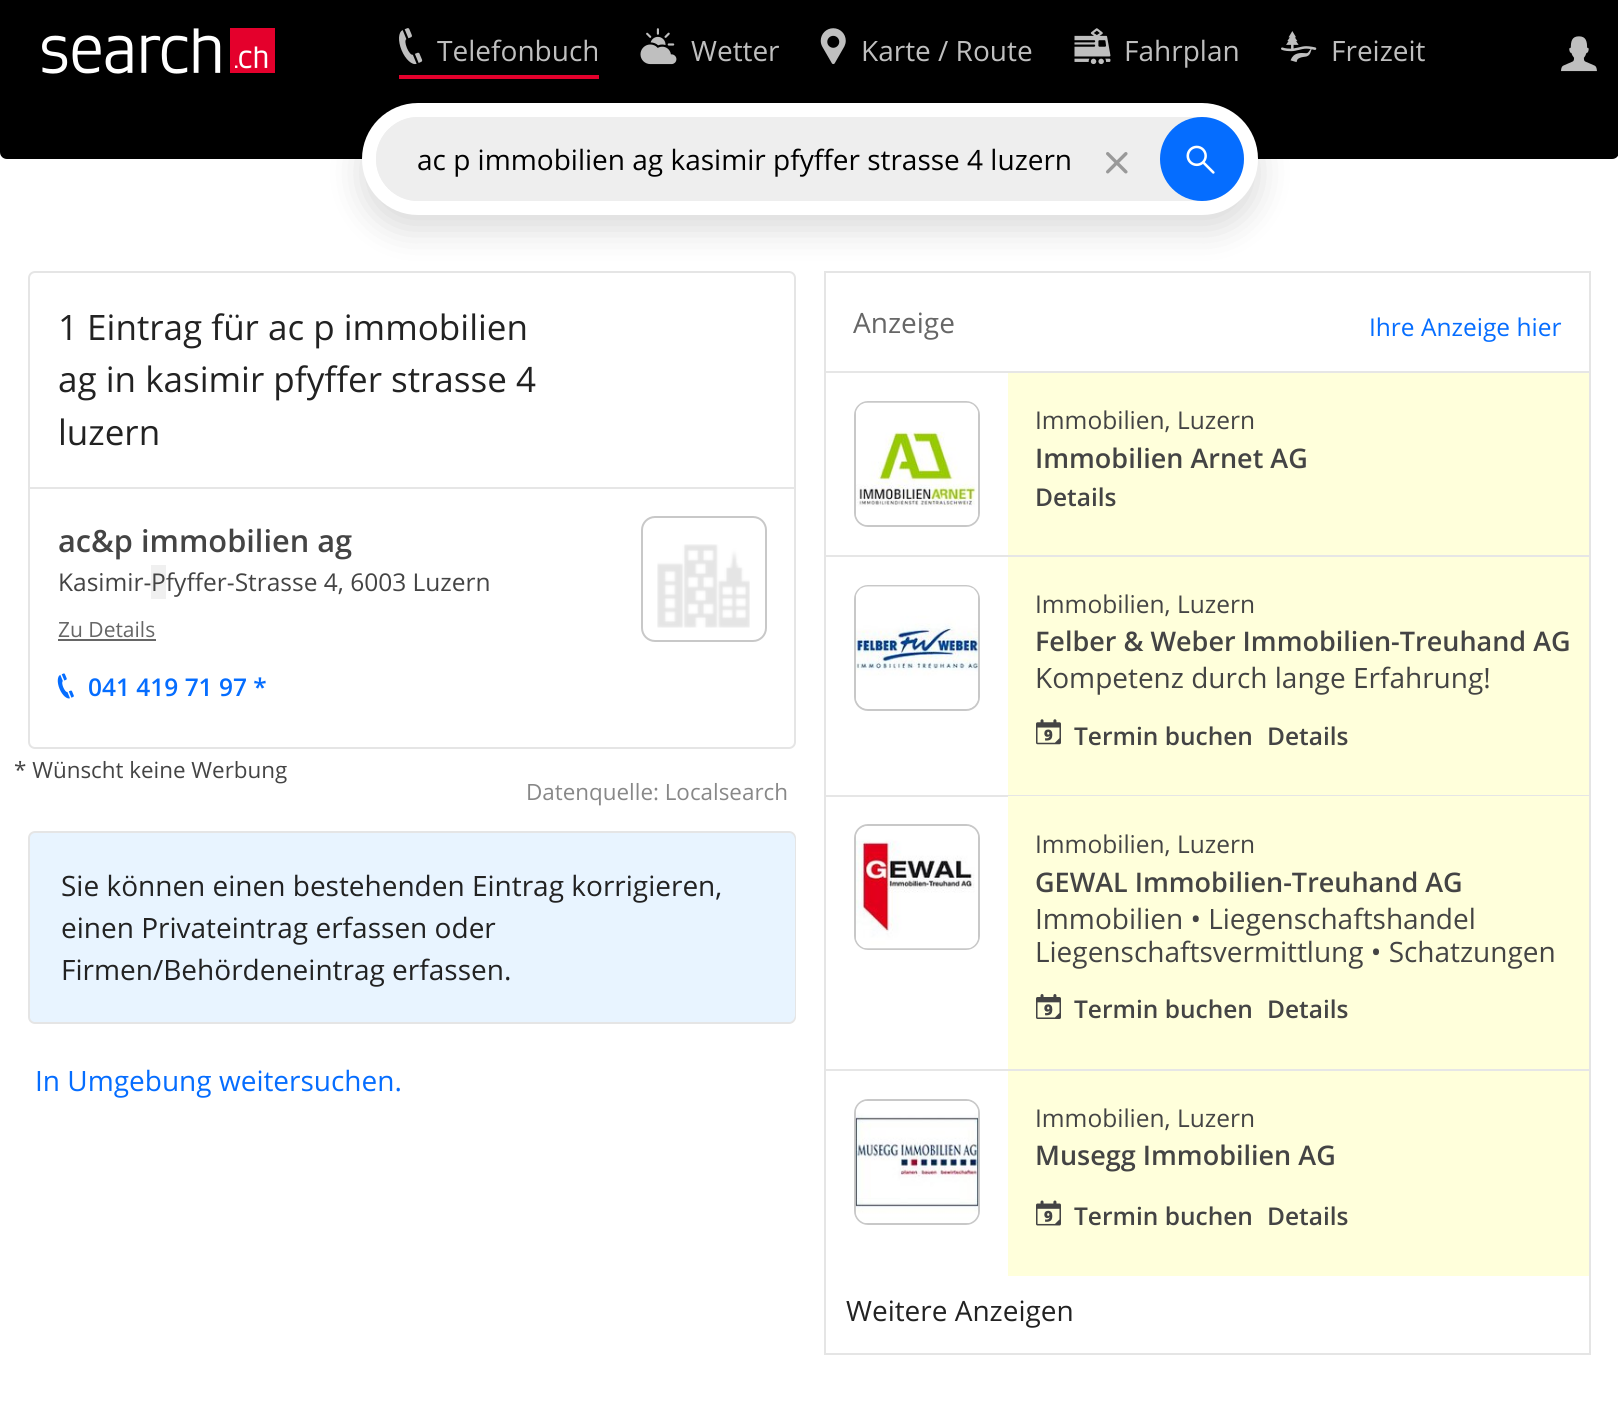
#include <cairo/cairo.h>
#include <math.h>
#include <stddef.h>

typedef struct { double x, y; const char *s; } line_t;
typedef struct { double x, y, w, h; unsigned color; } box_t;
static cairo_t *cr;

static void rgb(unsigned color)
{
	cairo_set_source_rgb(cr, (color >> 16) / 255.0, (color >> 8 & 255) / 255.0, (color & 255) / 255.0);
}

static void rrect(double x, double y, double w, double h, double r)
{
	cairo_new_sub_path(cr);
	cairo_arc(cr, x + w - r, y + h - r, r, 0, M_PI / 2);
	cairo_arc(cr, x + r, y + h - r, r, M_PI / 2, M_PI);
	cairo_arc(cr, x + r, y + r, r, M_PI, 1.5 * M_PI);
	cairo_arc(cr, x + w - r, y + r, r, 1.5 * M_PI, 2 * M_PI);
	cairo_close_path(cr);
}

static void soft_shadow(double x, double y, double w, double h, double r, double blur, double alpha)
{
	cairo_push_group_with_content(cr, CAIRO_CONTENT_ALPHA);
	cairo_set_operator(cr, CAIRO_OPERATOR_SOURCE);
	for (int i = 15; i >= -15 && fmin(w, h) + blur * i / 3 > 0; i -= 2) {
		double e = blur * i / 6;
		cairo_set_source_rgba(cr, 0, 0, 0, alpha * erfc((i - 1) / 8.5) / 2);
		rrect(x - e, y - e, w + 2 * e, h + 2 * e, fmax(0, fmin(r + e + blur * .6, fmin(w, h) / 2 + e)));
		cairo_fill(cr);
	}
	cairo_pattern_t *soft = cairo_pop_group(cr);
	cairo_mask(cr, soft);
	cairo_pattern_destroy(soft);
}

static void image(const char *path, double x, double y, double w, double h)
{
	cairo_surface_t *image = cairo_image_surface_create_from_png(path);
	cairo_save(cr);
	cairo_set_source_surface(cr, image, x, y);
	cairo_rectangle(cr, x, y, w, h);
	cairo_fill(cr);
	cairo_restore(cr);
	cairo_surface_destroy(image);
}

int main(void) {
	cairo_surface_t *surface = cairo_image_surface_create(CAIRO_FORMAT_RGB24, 1618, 1402);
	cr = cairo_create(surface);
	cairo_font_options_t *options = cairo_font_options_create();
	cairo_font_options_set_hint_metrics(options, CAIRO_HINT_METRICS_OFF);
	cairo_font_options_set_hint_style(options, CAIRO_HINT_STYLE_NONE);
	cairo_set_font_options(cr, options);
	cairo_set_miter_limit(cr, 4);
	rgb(0xffffff);
	cairo_paint(cr);
	rgb(0x000000);
	cairo_rectangle(cr, 0, 0, 1618, 103);
	cairo_fill(cr);
	image("img/1.png", 42, 28, 233, 46);
	rgb(0xe4002c);
	cairo_rectangle(cr, 399, 75, 200, 4);
	cairo_fill(cr);
	image("img/2.png", 399, 28, 24, 37);
	image("img/3.png", 640, 28, 37, 37);
	image("img/4.png", 820, 28, 26, 37);
	image("img/5.png", 1074, 28, 37, 37);
	image("img/6.png", 1281, 31, 36, 32);
	image("img/7.png", 1561, 36, 36, 36);
	rgb(0x000000);
	cairo_new_path(cr);
	cairo_move_to(cr, 0, 103);
	cairo_line_to(cr, 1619, 103);
	cairo_line_to(cr, 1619, 152);
	cairo_curve_to(cr, 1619, 156, 1616, 159, 1612, 159);
	cairo_line_to(cr, 7, 159);
	cairo_curve_to(cr, 3, 159, 0, 156, 0, 152);
	cairo_close_path(cr);
	cairo_fill(cr);
	rrect(29, 272, 766, 476, 6);
	rgb(0xe5e5e5);
	cairo_stroke(cr);
	cairo_rectangle(cr, 825, 272, 765, 1082);
	cairo_stroke(cr);
	rgb(0x000000);
	soft_shadow(362, 117, 896, 112, 56, 17.5, 0.15);
	rgb(0xffffff);
	rrect(362, 103, 896, 112, 56);
	cairo_fill(cr);
	rgb(0xeeeeee);
	rrect(376, 117, 868, 84, 42);
	cairo_fill(cr);
	rrect(376, 117, 700, 84, 42);
	cairo_fill(cr);
	image("img/8.png", 1106, 152, 22, 22);
	rgb(0x056dff);
	cairo_arc(cr, 1202, 159, 42, 0, 2 * M_PI);
	cairo_fill(cr);
	image("img/9.png", 1186, 145, 29, 29);
	{
		static const box_t items[] = {
			{30, 487, 765, 2, 0xe6e6e6},
			{151, 565, 15, 34, 0xf0f0f0},
			{58, 639, 98, 2, 0x666666},
		};
		for (size_t i = 0; i < sizeof items / sizeof *items; i++) {
			rgb(items[i].color);
			cairo_rectangle(cr, items[i].x, items[i].y, items[i].w, items[i].h);
			cairo_fill(cr);
		}
	}
	image("img/10.png", 57, 673, 17, 26);
	rrect(642, 517, 124, 124, 13);
	rgb(0xc8c8c8);
	cairo_stroke(cr);
	image("img/11.png", 657, 544, 93, 84);
	rgb(0xe8f4ff);
	rrect(29, 832, 766, 191, 6);
	cairo_fill_preserve(cr);
	rgb(0xe5e5e5);
	cairo_stroke(cr);
	rgb(0xe8f4ff);
	rrect(30, 833, 765, 189, 7);
	cairo_fill(cr);
	rgb(0xe6e6e6);
	cairo_rectangle(cr, 826, 371, 763, 2);
	cairo_fill(cr);
	rrect(855, 402, 124, 124, 13);
	rgb(0xc8c8c8);
	cairo_stroke(cr);
	image("img/12.png", 856, 402, 122, 123);
	rgb(0xffffdb);
	cairo_rectangle(cr, 1008, 373, 581, 182);
	cairo_fill(cr);
	rgb(0xe6e6e6);
	cairo_rectangle(cr, 826, 555, 763, 2);
	cairo_fill(cr);
	rrect(855, 586, 124, 124, 13);
	rgb(0xc8c8c8);
	cairo_stroke(cr);
	image("img/13.png", 856, 586, 122, 123);
	rgb(0xffffdb);
	cairo_rectangle(cr, 1008, 557, 581, 238);
	cairo_fill(cr);
	image("img/14.png", 1036, 719, 25, 26);
	rgb(0xe6e6e6);
	cairo_rectangle(cr, 826, 795, 763, 2);
	cairo_fill(cr);
	rrect(855, 825, 124, 124, 13);
	rgb(0xc8c8c8);
	cairo_stroke(cr);
	image("img/15.png", 856, 826, 122, 123);
	rgb(0xffffdb);
	cairo_rectangle(cr, 1008, 796, 581, 273);
	cairo_fill(cr);
	image("img/16.png", 1036, 994, 25, 25);
	rgb(0xe6e6e6);
	cairo_rectangle(cr, 826, 1069, 763, 2);
	cairo_fill(cr);
	rrect(855, 1100, 124, 124, 13);
	rgb(0xc8c8c8);
	cairo_stroke(cr);
	image("img/17.png", 855, 1101, 124, 122);
	rgb(0xffffdb);
	cairo_rectangle(cr, 1008, 1071, 581, 205);
	cairo_fill(cr);
	image("img/18.png", 1036, 1200, 25, 26);
	cairo_select_font_face(cr, "Open Sans", CAIRO_FONT_SLANT_NORMAL, CAIRO_FONT_WEIGHT_NORMAL);
	cairo_set_font_size(cr, 28);
	rgb(0xbfbfbf);
	{
		static const line_t items[] = {
			{437, 61, "Telefonbuch"},
			{691, 61, "Wetter"},
			{861, 61, "Karte / Route"},
			{1124, 61, "Fahrplan"},
			{1331, 61, "Freizeit"},
		};
		for (size_t i = 0; i < sizeof items / sizeof *items; i++) {
			cairo_move_to(cr, items[i].x, items[i].y);
			cairo_show_text(cr, items[i].s);
		}
	}
	rgb(0x000000);
	cairo_move_to(cr, 417, 170);
	cairo_show_text(cr, "ac p immobilien ag kasimir pfyffer strasse 4 luzern");
	cairo_set_font_size(cr, 35);
	rgb(0x222222);
	{
		static const line_t items[] = {
			{58, 340, "1 Eintrag für ac p immobilien"},
			{58, 392, "ag in kasimir pfyffer strasse 4"},
			{58, 445, "luzern"},
		};
		for (size_t i = 0; i < sizeof items / sizeof *items; i++) {
			cairo_move_to(cr, items[i].x, items[i].y);
			cairo_show_text(cr, items[i].s);
		}
	}
	cairo_select_font_face(cr, "Open Sans SemiBold", CAIRO_FONT_SLANT_NORMAL, CAIRO_FONT_WEIGHT_NORMAL);
	cairo_set_font_size(cr, 30.75);
	rgb(0x444444);
	cairo_move_to(cr, 58, 552);
	cairo_show_text(cr, "ac&p immobilien ag");
	cairo_select_font_face(cr, "Open Sans", CAIRO_FONT_SLANT_NORMAL, CAIRO_FONT_WEIGHT_NORMAL);
	cairo_set_font_size(cr, 24.5);
	cairo_move_to(cr, 58, 591);
	cairo_show_text(cr, "Kasimir-");
	cairo_move_to(cr, 151, 591);
	cairo_show_text(cr, "Pfyffer-Strasse 4, 6003 Luzern");
	cairo_set_font_size(cr, 21);
	rgb(0x666666);
	cairo_move_to(cr, 58, 637);
	cairo_show_text(cr, "Zu Details");
	cairo_select_font_face(cr, "Open Sans SemiBold", CAIRO_FONT_SLANT_NORMAL, CAIRO_FONT_WEIGHT_NORMAL);
	cairo_set_font_size(cr, 24.5);
	rgb(0x056dff);
	cairo_move_to(cr, 88, 696);
	cairo_show_text(cr, "041 419 71 97 *");
	cairo_select_font_face(cr, "Open Sans", CAIRO_FONT_SLANT_NORMAL, CAIRO_FONT_WEIGHT_NORMAL);
	cairo_set_font_size(cr, 22.4);
	rgb(0x444444);
	cairo_move_to(cr, 14, 778);
	cairo_show_text(cr, "* Wünscht keine Werbung");
	rgb(0x888888);
	cairo_move_to(cr, 526, 800);
	cairo_show_text(cr, "Datenquelle: Localsearch");
	cairo_set_font_size(cr, 28);
	rgb(0x222222);
	{
		static const line_t items[] = {
			{61, 896, "Sie können einen bestehenden Eintrag korrigieren,"},
			{61, 938, "einen Privateintrag erfassen oder"},
			{61, 980, "Firmen/Behördeneintrag erfassen."},
		};
		for (size_t i = 0; i < sizeof items / sizeof *items; i++) {
			cairo_move_to(cr, items[i].x, items[i].y);
			cairo_show_text(cr, items[i].s);
		}
	}
	rgb(0x056dff);
	cairo_move_to(cr, 35, 1091);
	cairo_show_text(cr, "In Umgebung weitersuchen.");
	rgb(0x666666);
	cairo_move_to(cr, 853, 333);
	cairo_show_text(cr, "Anzeige");
	cairo_set_font_size(cr, 24.5);
	rgb(0x056dff);
	cairo_move_to(cr, 1369, 336);
	cairo_show_text(cr, "Ihre Anzeige hier");
	rgb(0x444444);
	cairo_move_to(cr, 1035, 429);
	cairo_show_text(cr, "Immobilien, Luzern");
	cairo_select_font_face(cr, "Open Sans SemiBold", CAIRO_FONT_SLANT_NORMAL, CAIRO_FONT_WEIGHT_NORMAL);
	cairo_set_font_size(cr, 27);
	cairo_move_to(cr, 1035, 468);
	cairo_show_text(cr, "Immobilien Arnet AG");
	cairo_set_font_size(cr, 24.5);
	cairo_move_to(cr, 1035, 506);
	cairo_show_text(cr, "Details");
	cairo_select_font_face(cr, "Open Sans", CAIRO_FONT_SLANT_NORMAL, CAIRO_FONT_WEIGHT_NORMAL);
	cairo_move_to(cr, 1035, 613);
	cairo_show_text(cr, "Immobilien, Luzern");
	cairo_select_font_face(cr, "Open Sans SemiBold", CAIRO_FONT_SLANT_NORMAL, CAIRO_FONT_WEIGHT_NORMAL);
	cairo_set_font_size(cr, 27);
	cairo_move_to(cr, 1035, 651);
	cairo_show_text(cr, "Felber & Weber Immobilien-Treuhand AG");
	cairo_select_font_face(cr, "Open Sans", CAIRO_FONT_SLANT_NORMAL, CAIRO_FONT_WEIGHT_NORMAL);
	cairo_set_font_size(cr, 28);
	cairo_move_to(cr, 1035, 688);
	cairo_show_text(cr, "Kompetenz durch lange Erfahrung!");
	cairo_select_font_face(cr, "Open Sans SemiBold", CAIRO_FONT_SLANT_NORMAL, CAIRO_FONT_WEIGHT_NORMAL);
	cairo_set_font_size(cr, 24.5);
	cairo_move_to(cr, 1074, 745);
	cairo_show_text(cr, "Termin buchen");
	cairo_move_to(cr, 1267, 745);
	cairo_show_text(cr, "Details");
	cairo_select_font_face(cr, "Open Sans", CAIRO_FONT_SLANT_NORMAL, CAIRO_FONT_WEIGHT_NORMAL);
	cairo_move_to(cr, 1035, 853);
	cairo_show_text(cr, "Immobilien, Luzern");
	cairo_select_font_face(cr, "Open Sans SemiBold", CAIRO_FONT_SLANT_NORMAL, CAIRO_FONT_WEIGHT_NORMAL);
	cairo_set_font_size(cr, 27);
	cairo_move_to(cr, 1035, 892);
	cairo_show_text(cr, "GEWAL Immobilien-Treuhand AG");
	cairo_select_font_face(cr, "Open Sans", CAIRO_FONT_SLANT_NORMAL, CAIRO_FONT_WEIGHT_NORMAL);
	cairo_set_font_size(cr, 28);
	cairo_move_to(cr, 1035, 929);
	cairo_show_text(cr, "Immobilien • Liegenschaftshandel");
	cairo_move_to(cr, 1035, 962);
	cairo_show_text(cr, "Liegenschaftsvermittlung • Schatzungen");
	cairo_select_font_face(cr, "Open Sans SemiBold", CAIRO_FONT_SLANT_NORMAL, CAIRO_FONT_WEIGHT_NORMAL);
	cairo_set_font_size(cr, 24.5);
	cairo_move_to(cr, 1074, 1018);
	cairo_show_text(cr, "Termin buchen");
	cairo_move_to(cr, 1267, 1018);
	cairo_show_text(cr, "Details");
	cairo_select_font_face(cr, "Open Sans", CAIRO_FONT_SLANT_NORMAL, CAIRO_FONT_WEIGHT_NORMAL);
	cairo_move_to(cr, 1035, 1127);
	cairo_show_text(cr, "Immobilien, Luzern");
	cairo_select_font_face(cr, "Open Sans SemiBold", CAIRO_FONT_SLANT_NORMAL, CAIRO_FONT_WEIGHT_NORMAL);
	cairo_set_font_size(cr, 27);
	cairo_move_to(cr, 1035, 1165);
	cairo_show_text(cr, "Musegg Immobilien AG");
	cairo_set_font_size(cr, 24.5);
	cairo_move_to(cr, 1074, 1225);
	cairo_show_text(cr, "Termin buchen");
	cairo_move_to(cr, 1267, 1225);
	cairo_show_text(cr, "Details");
	cairo_select_font_face(cr, "Open Sans", CAIRO_FONT_SLANT_NORMAL, CAIRO_FONT_WEIGHT_NORMAL);
	cairo_set_font_size(cr, 28);
	rgb(0x222222);
	cairo_move_to(cr, 846, 1321);
	cairo_show_text(cr, "Weitere Anzeigen");
	cairo_surface_write_to_png(surface, "page.png");
	cairo_font_options_destroy(options);
	cairo_destroy(cr);
	cairo_surface_destroy(surface);
	return 0;
}
